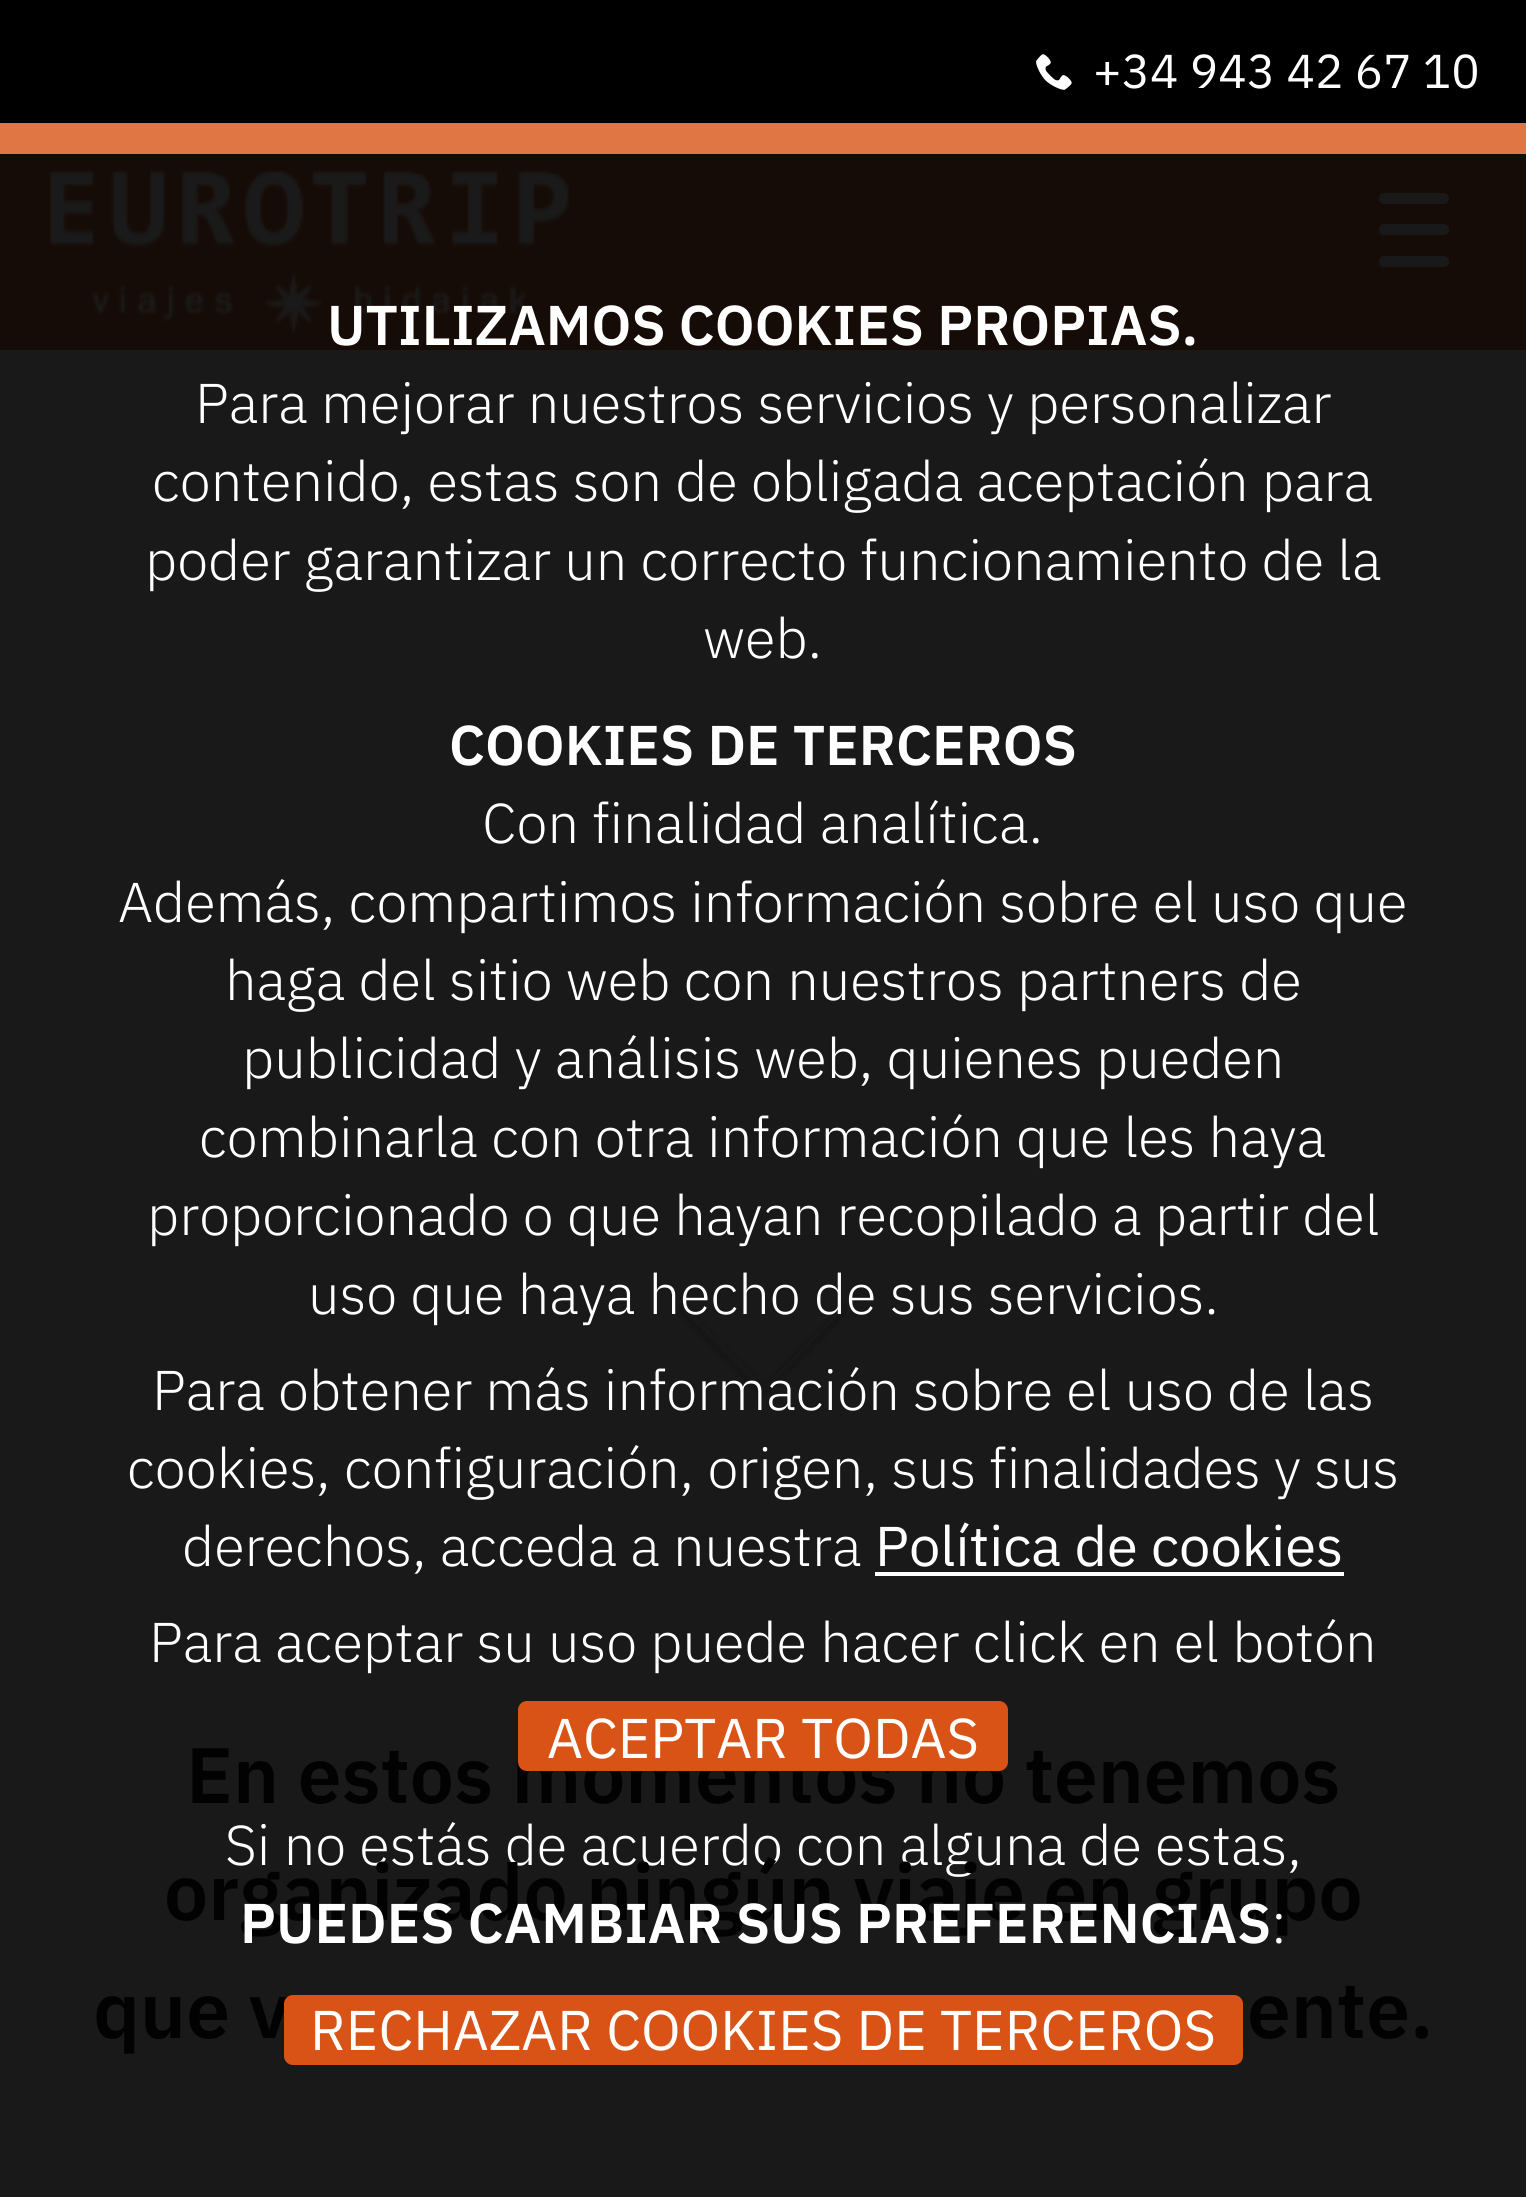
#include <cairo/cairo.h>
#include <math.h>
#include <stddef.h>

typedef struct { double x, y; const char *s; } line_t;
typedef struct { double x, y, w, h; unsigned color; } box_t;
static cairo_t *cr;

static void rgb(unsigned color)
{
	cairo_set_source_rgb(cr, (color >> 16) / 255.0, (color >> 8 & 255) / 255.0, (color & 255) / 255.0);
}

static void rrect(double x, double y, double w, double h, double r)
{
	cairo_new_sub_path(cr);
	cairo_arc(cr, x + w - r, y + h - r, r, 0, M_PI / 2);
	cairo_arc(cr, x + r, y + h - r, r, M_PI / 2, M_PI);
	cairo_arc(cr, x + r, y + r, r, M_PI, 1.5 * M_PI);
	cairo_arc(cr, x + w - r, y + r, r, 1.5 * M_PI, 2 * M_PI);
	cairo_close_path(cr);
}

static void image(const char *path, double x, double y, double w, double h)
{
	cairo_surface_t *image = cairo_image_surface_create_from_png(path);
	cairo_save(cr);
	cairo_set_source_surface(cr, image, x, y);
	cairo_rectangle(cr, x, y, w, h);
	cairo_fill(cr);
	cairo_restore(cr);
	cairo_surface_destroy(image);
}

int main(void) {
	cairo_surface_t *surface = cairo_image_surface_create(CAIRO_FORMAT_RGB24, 1526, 2197);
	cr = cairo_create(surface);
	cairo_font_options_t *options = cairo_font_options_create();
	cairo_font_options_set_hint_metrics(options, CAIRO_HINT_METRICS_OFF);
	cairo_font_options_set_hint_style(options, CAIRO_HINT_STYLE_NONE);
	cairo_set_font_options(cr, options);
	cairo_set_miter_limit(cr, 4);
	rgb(0x191919);
	cairo_paint(cr);
	{
		static const box_t items[] = {
			{0, 123, 1526, 31, 0xe07644},
			{0, 154, 1526, 196, 0x160c07},
			{0, 0, 1526, 123, 0x000000},
		};
		for (size_t i = 0; i < sizeof items / sizeof *items; i++) {
			rgb(items[i].color);
			cairo_rectangle(cr, items[i].x, items[i].y, items[i].w, items[i].h);
			cairo_fill(cr);
		}
	}
	image("img/1.png", 1036, 54, 36, 36);
	image("img/2.png", 50, 170, 519, 163);
	rgb(0x191919);
	rrect(1379, 193, 70, 11, 5.5);
	cairo_fill(cr);
	rrect(1379, 224, 70, 11, 5.5);
	cairo_fill(cr);
	rrect(1379, 256, 70, 11, 5.5);
	cairo_fill(cr);
	rgb(0xffffff);
	cairo_rectangle(cr, 875, 1572, 469, 4);
	cairo_fill(cr);
	image("img/3.png", 675, 1302, 176, 96);
	cairo_select_font_face(cr, "IBM Plex Sans", CAIRO_FONT_SLANT_NORMAL, CAIRO_FONT_WEIGHT_NORMAL);
	cairo_set_font_size(cr, 47.5);
	cairo_move_to(cr, 1093, 88);
	cairo_show_text(cr, "+34 943 42 67 10");
	cairo_select_font_face(cr, "IBM Plex Sans SemiBold", CAIRO_FONT_SLANT_NORMAL, CAIRO_FONT_WEIGHT_NORMAL);
	cairo_set_font_size(cr, 56);
	cairo_move_to(cr, 327, 345);
	cairo_show_text(cr, "UTILIZAMOS COOKIES PROPIAS.");
	cairo_select_font_face(cr, "IBM Plex Sans Light", CAIRO_FONT_SLANT_NORMAL, CAIRO_FONT_WEIGHT_NORMAL);
	{
		static const line_t items[] = {
			{195, 423, "Para mejorar nuestros servicios y personalizar"},
			{152, 501, "contenido, estas son de obligada aceptación para"},
			{145, 580, "poder garantizar un correcto funcionamiento de la"},
			{703, 658, "web."},
		};
		for (size_t i = 0; i < sizeof items / sizeof *items; i++) {
			cairo_move_to(cr, items[i].x, items[i].y);
			cairo_show_text(cr, items[i].s);
		}
	}
	cairo_select_font_face(cr, "IBM Plex Sans SemiBold", CAIRO_FONT_SLANT_NORMAL, CAIRO_FONT_WEIGHT_NORMAL);
	cairo_move_to(cr, 449, 765);
	cairo_show_text(cr, "COOKIES DE TERCEROS");
	cairo_select_font_face(cr, "IBM Plex Sans Light", CAIRO_FONT_SLANT_NORMAL, CAIRO_FONT_WEIGHT_NORMAL);
	{
		static const line_t items[] = {
			{482, 843, "Con finalidad analítica."},
			{118, 922, "Además, compartimos información sobre el uso que"},
			{225, 1000, "haga del sitio web con nuestros partners de"},
			{242, 1078, "publicidad y análisis web, quienes pueden"},
			{199, 1157, "combinarla con otra información que les haya"},
			{147, 1235, "proporcionado o que hayan recopilado a partir del"},
			{308, 1314, "uso que haya hecho de sus servicios."},
			{152, 1410, "Para obtener más información sobre el uso de las"},
			{127, 1488, "cookies, configuración, origen, sus finalidades y sus"},
			{182, 1566, "derechos, acceda a nuestra"},
		};
		for (size_t i = 0; i < sizeof items / sizeof *items; i++) {
			cairo_move_to(cr, items[i].x, items[i].y);
			cairo_show_text(cr, items[i].s);
		}
	}
	cairo_select_font_face(cr, "IBM Plex Sans", CAIRO_FONT_SLANT_NORMAL, CAIRO_FONT_WEIGHT_NORMAL);
	cairo_move_to(cr, 875, 1566);
	cairo_show_text(cr, "Política de cookies");
	cairo_select_font_face(cr, "IBM Plex Sans Light", CAIRO_FONT_SLANT_NORMAL, CAIRO_FONT_WEIGHT_NORMAL);
	cairo_move_to(cr, 149, 1662);
	cairo_show_text(cr, "Para aceptar su uso puede hacer click en el botón");
	cairo_move_to(cr, 225, 1865);
	cairo_show_text(cr, "Si no estás de acuerdo con alguna de estas,");
	cairo_select_font_face(cr, "IBM Plex Sans SemiBold", CAIRO_FONT_SLANT_NORMAL, CAIRO_FONT_WEIGHT_NORMAL);
	cairo_set_font_size(cr, 78.4);
	rgb(0x020202);
	cairo_move_to(cr, 186, 1803);
	cairo_show_text(cr, "En estos momentos no tenemos");
	rgb(0xd85315);
	rrect(518, 1701, 490, 70, 9);
	cairo_fill(cr);
	cairo_select_font_face(cr, "IBM Plex Sans", CAIRO_FONT_SLANT_NORMAL, CAIRO_FONT_WEIGHT_NORMAL);
	cairo_set_font_size(cr, 56);
	rgb(0xffffff);
	cairo_move_to(cr, 547, 1758);
	cairo_show_text(cr, "ACEPTAR TODAS");
	cairo_select_font_face(cr, "IBM Plex Sans SemiBold", CAIRO_FONT_SLANT_NORMAL, CAIRO_FONT_WEIGHT_NORMAL);
	cairo_set_font_size(cr, 78.4);
	rgb(0x020202);
	cairo_move_to(cr, 164, 1920);
	cairo_show_text(cr, "organizado ningún viaje en grupo");
	cairo_select_font_face(cr, "IBM Plex Sans Light", CAIRO_FONT_SLANT_NORMAL, CAIRO_FONT_WEIGHT_NORMAL);
	cairo_set_font_size(cr, 56);
	rgb(0xffffff);
	cairo_move_to(cr, 1271, 1943);
	cairo_show_text(cr, ":");
	cairo_select_font_face(cr, "IBM Plex Sans SemiBold", CAIRO_FONT_SLANT_NORMAL, CAIRO_FONT_WEIGHT_NORMAL);
	cairo_move_to(cr, 240, 1943);
	cairo_show_text(cr, "PUEDES CAMBIAR SUS PREFERENCIAS");
	cairo_set_font_size(cr, 78.4);
	rgb(0x020202);
	cairo_move_to(cr, 93, 2038);
	cairo_show_text(cr, "que v");
	rgb(0xd85315);
	rrect(284, 1995, 959, 70, 9);
	cairo_fill(cr);
	cairo_select_font_face(cr, "IBM Plex Sans", CAIRO_FONT_SLANT_NORMAL, CAIRO_FONT_WEIGHT_NORMAL);
	cairo_set_font_size(cr, 56);
	rgb(0xffffff);
	cairo_move_to(cr, 310, 2050);
	cairo_show_text(cr, "RECHAZAR COOKIES DE TERCEROS");
	cairo_select_font_face(cr, "IBM Plex Sans SemiBold", CAIRO_FONT_SLANT_NORMAL, CAIRO_FONT_WEIGHT_NORMAL);
	cairo_set_font_size(cr, 78.4);
	rgb(0x020202);
	cairo_move_to(cr, 1247, 2038);
	cairo_show_text(cr, "ente.");
	cairo_surface_write_to_png(surface, "page.png");
	cairo_font_options_destroy(options);
	cairo_destroy(cr);
	cairo_surface_destroy(surface);
	return 0;
}
